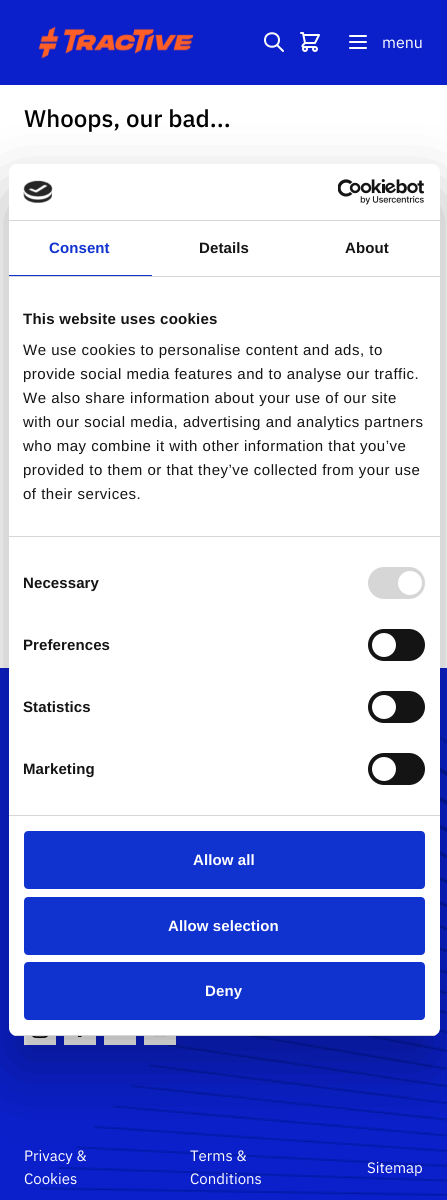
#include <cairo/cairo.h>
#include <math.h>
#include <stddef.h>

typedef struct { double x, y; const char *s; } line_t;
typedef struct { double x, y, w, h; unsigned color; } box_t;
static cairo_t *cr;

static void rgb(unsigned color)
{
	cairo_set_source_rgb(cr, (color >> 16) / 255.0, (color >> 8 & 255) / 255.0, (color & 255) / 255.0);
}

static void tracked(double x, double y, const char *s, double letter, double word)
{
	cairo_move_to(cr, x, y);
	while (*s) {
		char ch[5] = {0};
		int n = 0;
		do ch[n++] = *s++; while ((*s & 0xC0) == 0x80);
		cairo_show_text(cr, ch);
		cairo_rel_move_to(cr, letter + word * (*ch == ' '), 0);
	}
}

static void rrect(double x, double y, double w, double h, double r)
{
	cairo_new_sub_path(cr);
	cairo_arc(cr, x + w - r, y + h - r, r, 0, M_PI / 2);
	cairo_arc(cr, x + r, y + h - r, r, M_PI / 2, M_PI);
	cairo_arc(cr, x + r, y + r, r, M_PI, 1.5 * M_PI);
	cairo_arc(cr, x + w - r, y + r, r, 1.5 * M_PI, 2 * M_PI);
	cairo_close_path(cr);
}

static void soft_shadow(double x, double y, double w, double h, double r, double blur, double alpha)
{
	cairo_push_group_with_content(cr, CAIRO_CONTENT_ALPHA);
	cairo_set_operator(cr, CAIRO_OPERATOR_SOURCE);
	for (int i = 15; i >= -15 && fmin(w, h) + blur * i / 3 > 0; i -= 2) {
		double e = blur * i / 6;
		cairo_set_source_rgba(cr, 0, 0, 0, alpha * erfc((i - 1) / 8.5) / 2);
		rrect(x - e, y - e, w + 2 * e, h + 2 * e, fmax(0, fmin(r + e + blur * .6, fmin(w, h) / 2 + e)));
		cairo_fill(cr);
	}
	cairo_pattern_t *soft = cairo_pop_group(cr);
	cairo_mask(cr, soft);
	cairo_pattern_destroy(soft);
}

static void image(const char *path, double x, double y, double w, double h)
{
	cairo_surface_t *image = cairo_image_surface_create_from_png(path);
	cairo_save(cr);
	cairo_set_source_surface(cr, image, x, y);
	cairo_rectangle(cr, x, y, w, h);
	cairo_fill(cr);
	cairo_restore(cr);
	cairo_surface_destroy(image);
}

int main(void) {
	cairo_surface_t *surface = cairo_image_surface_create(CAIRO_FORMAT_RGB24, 447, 1200);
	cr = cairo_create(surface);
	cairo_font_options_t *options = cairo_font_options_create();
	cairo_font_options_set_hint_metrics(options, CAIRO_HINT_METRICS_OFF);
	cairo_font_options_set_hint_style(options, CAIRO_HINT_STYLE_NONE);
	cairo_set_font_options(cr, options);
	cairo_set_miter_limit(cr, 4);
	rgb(0xffffff);
	cairo_paint(cr);
	rgb(0x0b20ca);
	cairo_rectangle(cr, 0, 0, 447, 85);
	cairo_fill(cr);
	image("img/1.png", 38, 26, 156, 33);
	cairo_new_path(cr);
	cairo_move_to(cr, 283, 51);
	cairo_line_to(cr, 277, 45);
	cairo_move_to(cr, 279, 40);
	cairo_curve_to(cr, 279, 49, 265, 49, 265, 40);
	cairo_curve_to(cr, 265, 31, 279, 31, 279, 40);
	cairo_close_path(cr);
	rgb(0xffffff);
	cairo_set_line_cap(cr, CAIRO_LINE_CAP_ROUND);
	cairo_set_line_join(cr, CAIRO_LINE_JOIN_ROUND);
	cairo_stroke(cr);
	image("img/2.png", 300, 32, 20, 20);
	cairo_new_path(cr);
	cairo_move_to(cr, 350, 36);
	cairo_line_to(cr, 366, 36);
	cairo_move_to(cr, 350, 42);
	cairo_line_to(cr, 366, 42);
	cairo_move_to(cr, 350, 48);
	cairo_line_to(cr, 366, 48);
	cairo_stroke(cr);
	rgb(0x0b20ca);
	cairo_rectangle(cr, 0, 668, 447, 532);
	cairo_fill(cr);
	image("img/3.png", 39, 736, 408, 461);
	rgb(0xffffff);
	cairo_rectangle(cr, 24, 1036, 32, 9);
	cairo_fill(cr);
	image("img/4.png", 32, 1036, 16, 2);
	cairo_rectangle(cr, 64, 1036, 32, 9);
	cairo_fill(cr);
	image("img/5.png", 78, 1036, 4, 1);
	cairo_rectangle(cr, 104, 1036, 32, 9);
	cairo_fill(cr);
	cairo_rectangle(cr, 144, 1036, 32, 9);
	cairo_fill(cr);
	image("img/6.png", 154, 1036, 12, 1);
	rgb(0x000000);
	soft_shadow(9, 196, 431, 872, 8, 34, 0.3);
	rgb(0xffffff);
	rrect(9, 164, 431, 872, 8);
	cairo_fill(cr);
	rgb(0xd6d6d6);
	cairo_rectangle(cr, 9, 220, 431, 1);
	cairo_fill(cr);
	image("img/7.png", 23, 180, 30, 23);
	image("img/8.png", 338, 179, 87, 26);
	{
		static const box_t items[] = {
			{9, 276, 431, 1, 0xd6d6d6},
			{9, 275, 143, 1, 0x1032cf},
			{9, 536, 431, 1, 0xd6d6d6},
			{9, 815, 431, 1, 0xd6d6d6},
		};
		for (size_t i = 0; i < sizeof items / sizeof *items; i++) {
			rgb(items[i].color);
			cairo_rectangle(cr, items[i].x, items[i].y, items[i].w, items[i].h);
			cairo_fill(cr);
		}
	}
	rrect(368, 567, 57, 32, 16);
	cairo_fill(cr);
	rgb(0xffffff);
	cairo_arc(cr, 410, 583, 12, 0, 2 * M_PI);
	cairo_fill(cr);
	rgb(0x141414);
	rrect(368, 629, 57, 32, 16);
	cairo_fill(cr);
	rgb(0xffffff);
	cairo_arc(cr, 384, 645, 12, 0, 2 * M_PI);
	cairo_fill(cr);
	rgb(0x141414);
	rrect(368, 691, 57, 32, 16);
	cairo_fill(cr);
	rgb(0xffffff);
	cairo_arc(cr, 384, 707, 12, 0, 2 * M_PI);
	cairo_fill(cr);
	rgb(0x141414);
	rrect(368, 753, 57, 32, 16);
	cairo_fill(cr);
	rgb(0xffffff);
	cairo_arc(cr, 384, 769, 12, 0, 2 * M_PI);
	cairo_fill(cr);
	cairo_save(cr);
	rrect(9, 164, 431, 872, 8);
	cairo_clip(cr);
	rgb(0xd6d6d6);
	cairo_rectangle(cr, 9, 1035, 431, 1);
	cairo_fill(cr);
	cairo_restore(cr);
	rgb(0x1032cf);
	rrect(25, 832, 399, 56, 3);
	cairo_fill_preserve(cr);
	cairo_set_line_cap(cr, CAIRO_LINE_CAP_BUTT);
	cairo_set_line_join(cr, CAIRO_LINE_JOIN_MITER);
	cairo_stroke(cr);
	rrect(25, 898, 399, 56, 3);
	cairo_fill_preserve(cr);
	cairo_stroke(cr);
	rrect(25, 963, 399, 56, 3);
	cairo_fill_preserve(cr);
	cairo_stroke(cr);
	cairo_select_font_face(cr, "IBM Plex Sans", CAIRO_FONT_SLANT_NORMAL, CAIRO_FONT_WEIGHT_NORMAL);
	cairo_set_font_size(cr, 16);
	rgb(0xffffff);
	cairo_move_to(cr, 382, 48);
	cairo_show_text(cr, "menu");
	cairo_select_font_face(cr, "IBM Plex Sans Medium", CAIRO_FONT_SLANT_NORMAL, CAIRO_FONT_WEIGHT_NORMAL);
	cairo_set_font_size(cr, 24);
	rgb(0x000000);
	cairo_move_to(cr, 24, 127);
	cairo_show_text(cr, "Whoops, our bad...");
	cairo_select_font_face(cr, "IBM Plex Sans", CAIRO_FONT_SLANT_NORMAL, CAIRO_FONT_WEIGHT_NORMAL);
	cairo_set_font_size(cr, 15);
	rgb(0xffffff);
	{
		static const line_t items[] = {
			{24, 1161, "Privacy &"},
			{24, 1184, "Cookies"},
			{190, 1161, "Terms &"},
			{190, 1184, "Conditions"},
			{367, 1173, "Sitemap"},
		};
		for (size_t i = 0; i < sizeof items / sizeof *items; i++) {
			cairo_move_to(cr, items[i].x, items[i].y);
			cairo_show_text(cr, items[i].s);
		}
	}
	cairo_select_font_face(cr, "Liberation Sans", CAIRO_FONT_SLANT_NORMAL, CAIRO_FONT_WEIGHT_BOLD);
	rgb(0x1032cf);
	tracked(49, 253, "Consent", 0.1, 0);
	rgb(0x141414);
	tracked(199, 253, "Details", 0.1, 0);
	tracked(345, 253, "About", 0.1, 0);
	tracked(23, 324, "This website uses cookies", 0.25, 0);
	cairo_select_font_face(cr, "Liberation Sans", CAIRO_FONT_SLANT_NORMAL, CAIRO_FONT_WEIGHT_NORMAL);
	{
		static const line_t items[] = {
			{23, 355, "We use cookies to personalise content and ads, to"},
			{23, 379, "provide social media features and to analyse our traffic."},
			{23, 403, "We also share information about your use of our site"},
			{23, 427, "with our social media, advertising and analytics partners"},
			{23, 451, "who may combine it with other information that you’ve"},
			{23, 475, "provided to them or that they’ve collected from your use"},
			{23, 499, "of their services."},
		};
		for (size_t i = 0; i < sizeof items / sizeof *items; i++) {
			tracked(items[i].x, items[i].y, items[i].s, 0.5, 0);
		}
	}
	cairo_select_font_face(cr, "Liberation Sans", CAIRO_FONT_SLANT_NORMAL, CAIRO_FONT_WEIGHT_BOLD);
	{
		static const line_t items[] = {
			{23, 588, "Necessary"},
			{23, 650, "Preferences"},
			{23, 712, "Statistics"},
			{23, 774, "Marketing"},
		};
		for (size_t i = 0; i < sizeof items / sizeof *items; i++) {
			tracked(items[i].x, items[i].y, items[i].s, 0.1, 0);
		}
	}
	rgb(0xffffff);
	{
		static const line_t items[] = {
			{193, 865, "Allow all"},
			{168, 931, "Allow selection"},
			{205, 996, "Deny"},
		};
		for (size_t i = 0; i < sizeof items / sizeof *items; i++) {
			tracked(items[i].x, items[i].y, items[i].s, 0.1, 0);
		}
	}
	cairo_surface_write_to_png(surface, "page.png");
	cairo_font_options_destroy(options);
	cairo_destroy(cr);
	cairo_surface_destroy(surface);
	return 0;
}
